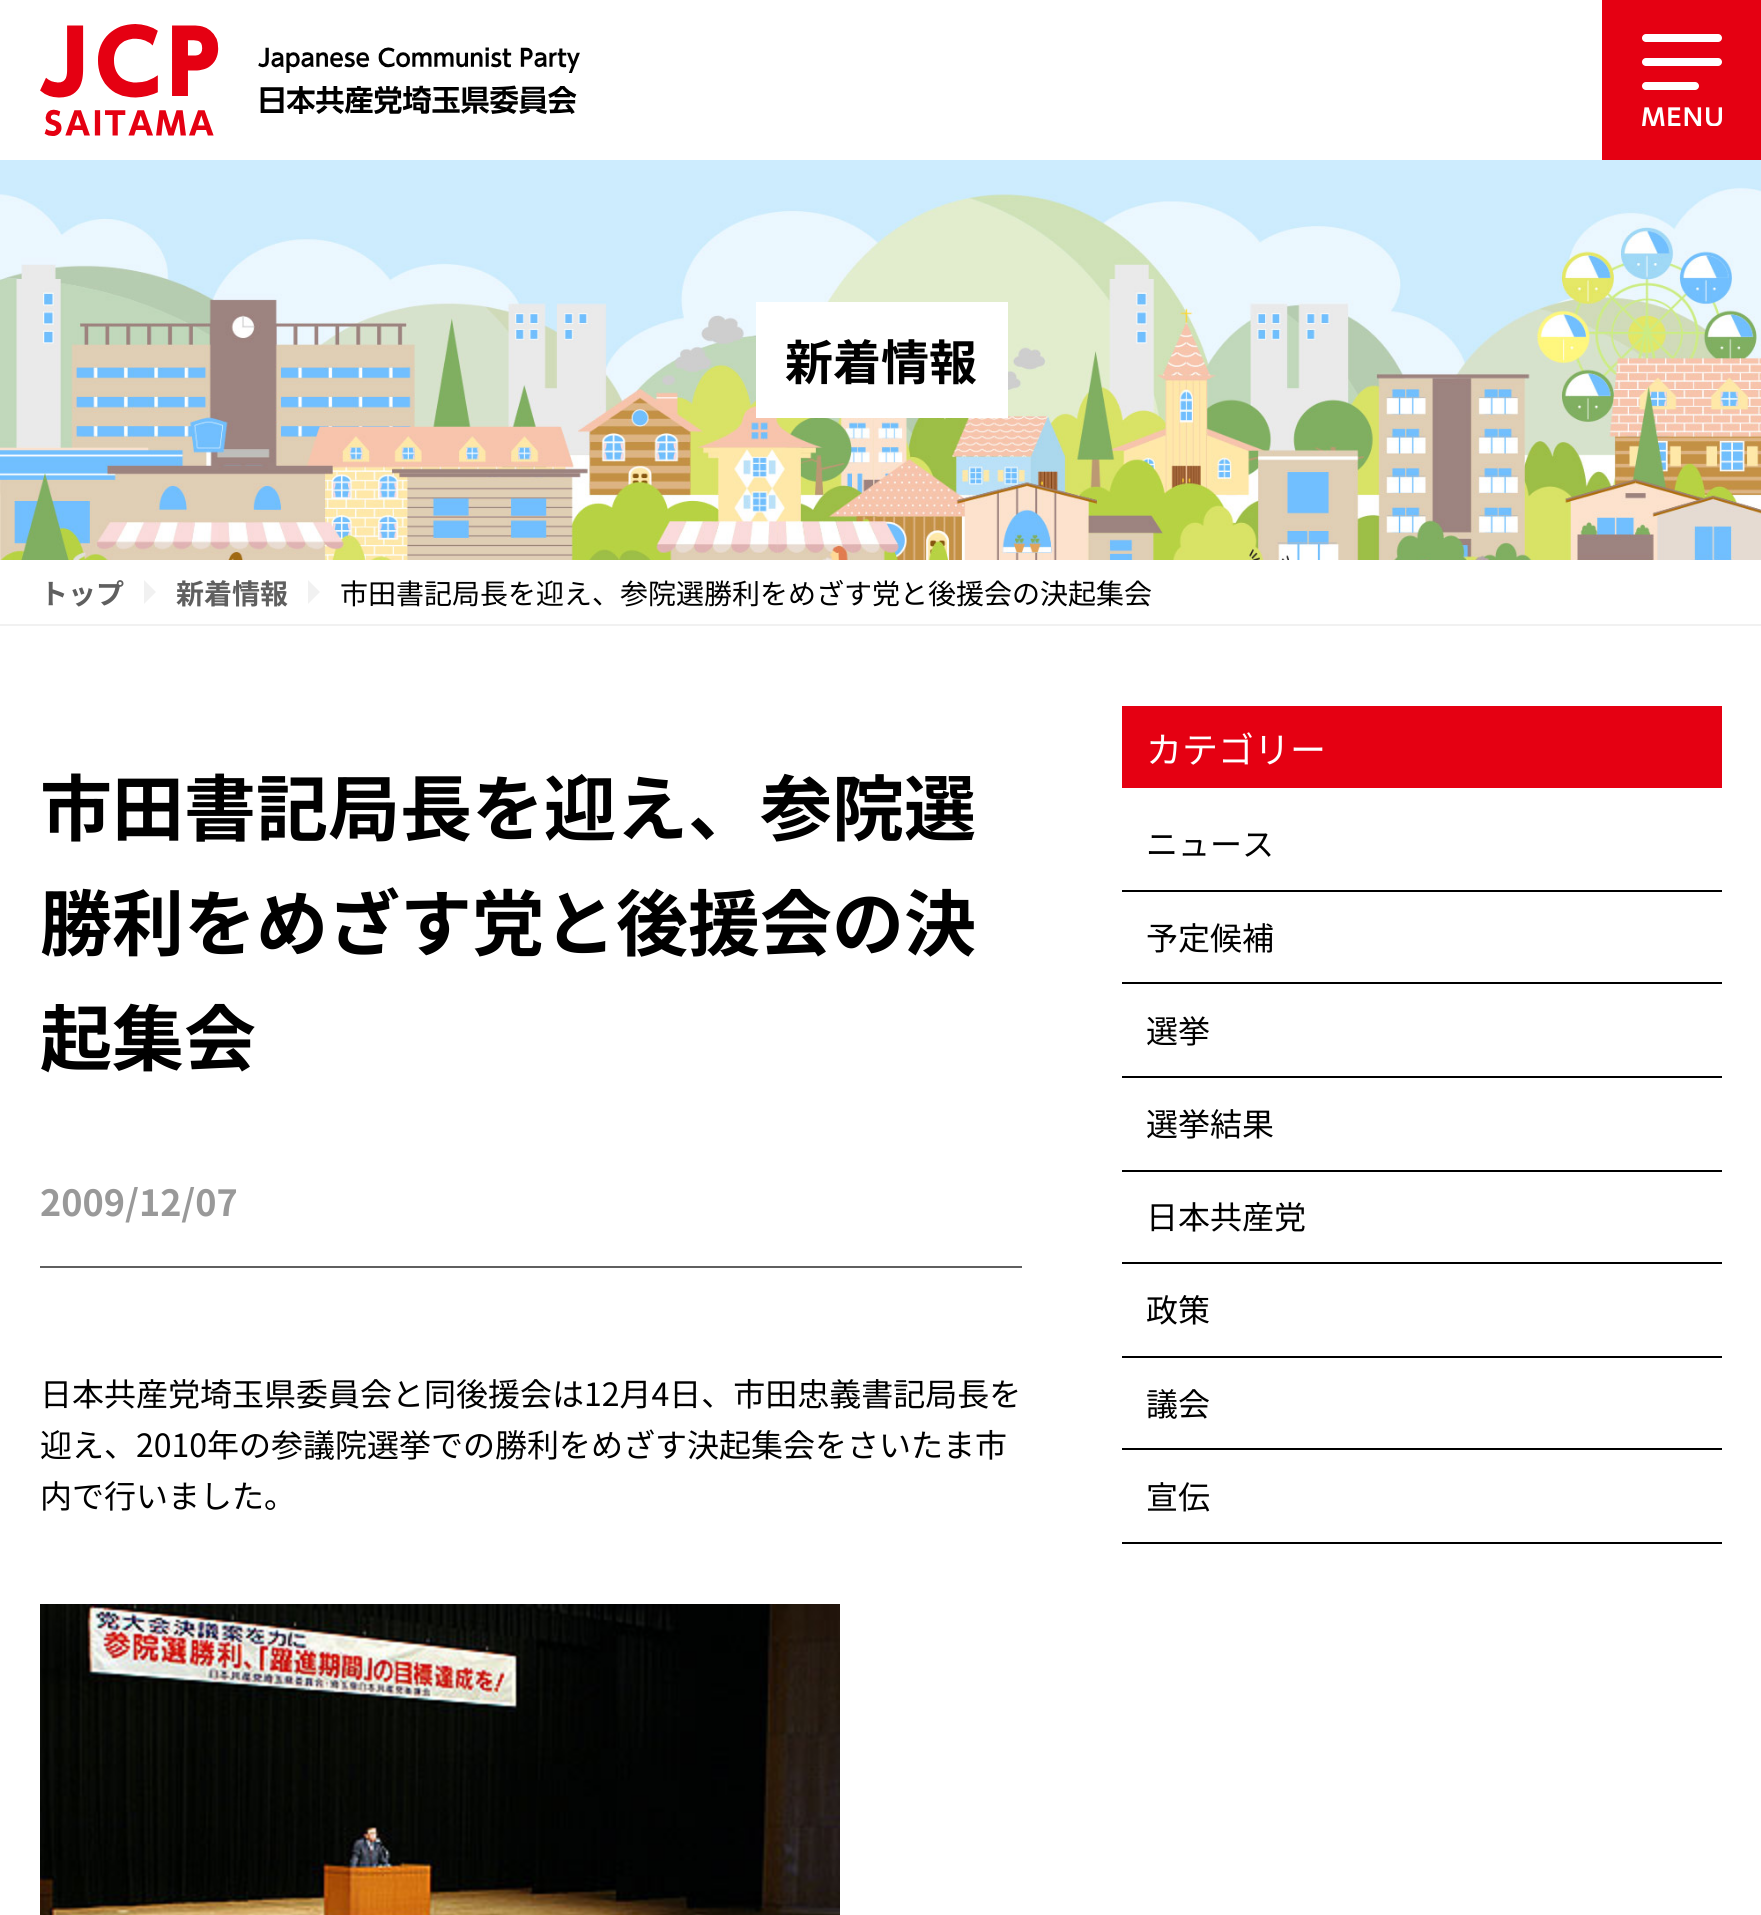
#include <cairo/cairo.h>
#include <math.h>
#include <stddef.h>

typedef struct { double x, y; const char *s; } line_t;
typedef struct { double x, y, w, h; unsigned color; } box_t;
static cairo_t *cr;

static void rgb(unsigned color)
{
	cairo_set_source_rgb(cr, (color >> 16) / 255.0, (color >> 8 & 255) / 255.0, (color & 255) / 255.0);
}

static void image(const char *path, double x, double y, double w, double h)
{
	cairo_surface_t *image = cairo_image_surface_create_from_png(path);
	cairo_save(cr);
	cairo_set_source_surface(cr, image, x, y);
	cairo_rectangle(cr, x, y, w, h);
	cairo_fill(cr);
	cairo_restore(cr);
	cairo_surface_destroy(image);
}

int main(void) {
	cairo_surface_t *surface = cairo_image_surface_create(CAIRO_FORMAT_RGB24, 1761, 1915);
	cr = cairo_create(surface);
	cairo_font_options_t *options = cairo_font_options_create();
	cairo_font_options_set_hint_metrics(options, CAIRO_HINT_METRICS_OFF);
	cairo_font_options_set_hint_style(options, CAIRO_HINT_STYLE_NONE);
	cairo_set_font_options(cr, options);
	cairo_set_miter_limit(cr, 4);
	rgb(0xffffff);
	cairo_paint(cr);
	image("img/1.png", 40, 24, 540, 112);
	rgb(0xe50012);
	cairo_rectangle(cr, 1602, 0, 159, 160);
	cairo_fill(cr);
	image("img/2.png", 1642, 34, 80, 92);
	image("img/3.png", 0, 160, 1761, 400);
	rgb(0xffffff);
	cairo_rectangle(cr, 756, 302, 252, 116);
	cairo_fill(cr);
	rgb(0xf1f1f1);
	cairo_rectangle(cr, 0, 624, 1761, 2);
	cairo_fill(cr);
	cairo_new_path(cr);
	cairo_move_to(cr, 144, 604);
	cairo_line_to(cr, 144, 580);
	cairo_line_to(cr, 156, 592);
	cairo_close_path(cr);
	cairo_fill(cr);
	cairo_new_path(cr);
	cairo_move_to(cr, 308, 604);
	cairo_line_to(cr, 308, 580);
	cairo_line_to(cr, 320, 592);
	cairo_close_path(cr);
	cairo_fill(cr);
	rgb(0x5f5f5f);
	cairo_rectangle(cr, 40, 1266, 982, 2);
	cairo_fill(cr);
	image("img/4.png", 40, 1604, 800, 311);
	{
		static const box_t items[] = {
			{1122, 706, 600, 82, 0xe50012},
			{1122, 890, 600, 2, 0x000000},
			{1122, 982, 600, 2, 0x000000},
			{1122, 1076, 600, 2, 0x000000},
			{1122, 1170, 600, 2, 0x000000},
			{1122, 1262, 600, 2, 0x000000},
			{1122, 1356, 600, 2, 0x000000},
			{1122, 1448, 600, 2, 0x000000},
			{1122, 1542, 600, 2, 0x000000},
		};
		for (size_t i = 0; i < sizeof items / sizeof *items; i++) {
			rgb(items[i].color);
			cairo_rectangle(cr, items[i].x, items[i].y, items[i].w, items[i].h);
			cairo_fill(cr);
		}
	}
	cairo_select_font_face(cr, "Noto Sans JP", CAIRO_FONT_SLANT_NORMAL, CAIRO_FONT_WEIGHT_BOLD);
	cairo_set_font_size(cr, 48);
	cairo_move_to(cr, 785, 380);
	cairo_show_text(cr, "新着情報");
	cairo_set_font_size(cr, 28);
	rgb(0x5f5f5f);
	cairo_move_to(cr, 40, 604);
	cairo_show_text(cr, "トップ");
	cairo_move_to(cr, 176, 604);
	cairo_show_text(cr, "新着情報");
	cairo_select_font_face(cr, "Noto Sans JP", CAIRO_FONT_SLANT_NORMAL, CAIRO_FONT_WEIGHT_NORMAL);
	rgb(0x000000);
	cairo_move_to(cr, 340, 604);
	cairo_show_text(cr, "市田書記局長を迎え、参院選勝利をめざす党と後援会の決起集会");
	cairo_select_font_face(cr, "Noto Sans JP", CAIRO_FONT_SLANT_NORMAL, CAIRO_FONT_WEIGHT_BOLD);
	cairo_set_font_size(cr, 72);
	{
		static const line_t items[] = {
			{40, 835, "市田書記局長を迎え、参院選"},
			{40, 950, "勝利をめざす党と後援会の決"},
			{40, 1065, "起集会"},
		};
		for (size_t i = 0; i < sizeof items / sizeof *items; i++) {
			cairo_move_to(cr, items[i].x, items[i].y);
			cairo_show_text(cr, items[i].s);
		}
	}
	cairo_set_font_size(cr, 36);
	rgb(0x999999);
	cairo_move_to(cr, 40, 1216);
	cairo_show_text(cr, "2009/12/07");
	cairo_select_font_face(cr, "Noto Sans JP", CAIRO_FONT_SLANT_NORMAL, CAIRO_FONT_WEIGHT_NORMAL);
	cairo_set_font_size(cr, 32);
	rgb(0x000000);
	{
		static const line_t items[] = {
			{40, 1406, "日本共産党埼玉県委員会と同後援会は12月4日、市田忠義書記局長を"},
			{40, 1457, "迎え、2010年の参議院選挙での勝利をめざす決起集会をさいたま市"},
			{40, 1508, "内で行いました。"},
		};
		for (size_t i = 0; i < sizeof items / sizeof *items; i++) {
			cairo_move_to(cr, items[i].x, items[i].y);
			cairo_show_text(cr, items[i].s);
		}
	}
	cairo_set_font_size(cr, 36);
	rgb(0xffffff);
	cairo_move_to(cr, 1146, 763);
	cairo_show_text(cr, "カテゴリー");
	cairo_set_font_size(cr, 32);
	rgb(0x000000);
	{
		static const line_t items[] = {
			{1146, 856, "ニュース"},
			{1146, 950, "予定候補"},
			{1146, 1043, "選挙"},
			{1146, 1136, "選挙結果"},
			{1146, 1229, "日本共産党"},
			{1146, 1322, "政策"},
			{1146, 1416, "議会"},
			{1146, 1509, "宣伝"},
		};
		for (size_t i = 0; i < sizeof items / sizeof *items; i++) {
			cairo_move_to(cr, items[i].x, items[i].y);
			cairo_show_text(cr, items[i].s);
		}
	}
	cairo_surface_write_to_png(surface, "page.png");
	cairo_font_options_destroy(options);
	cairo_destroy(cr);
	cairo_surface_destroy(surface);
	return 0;
}
